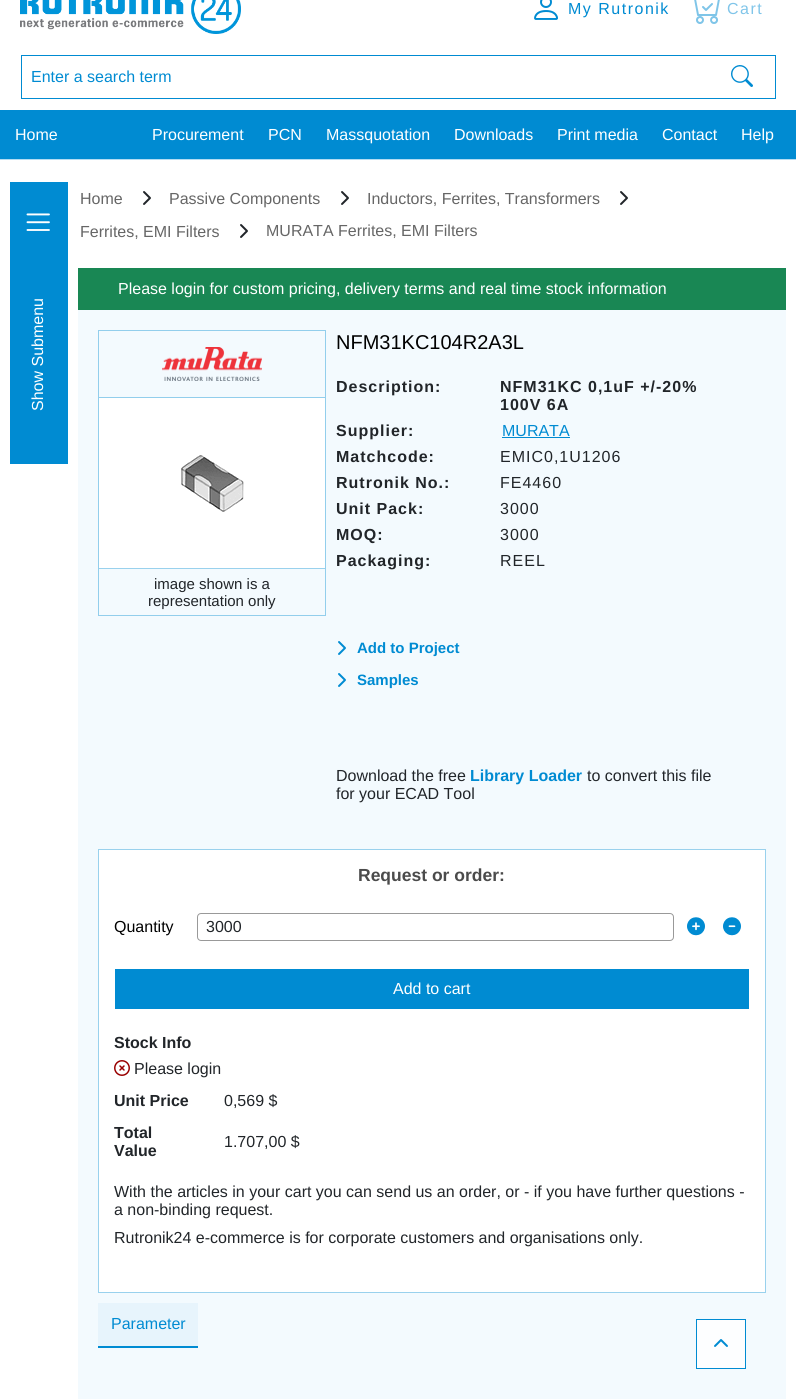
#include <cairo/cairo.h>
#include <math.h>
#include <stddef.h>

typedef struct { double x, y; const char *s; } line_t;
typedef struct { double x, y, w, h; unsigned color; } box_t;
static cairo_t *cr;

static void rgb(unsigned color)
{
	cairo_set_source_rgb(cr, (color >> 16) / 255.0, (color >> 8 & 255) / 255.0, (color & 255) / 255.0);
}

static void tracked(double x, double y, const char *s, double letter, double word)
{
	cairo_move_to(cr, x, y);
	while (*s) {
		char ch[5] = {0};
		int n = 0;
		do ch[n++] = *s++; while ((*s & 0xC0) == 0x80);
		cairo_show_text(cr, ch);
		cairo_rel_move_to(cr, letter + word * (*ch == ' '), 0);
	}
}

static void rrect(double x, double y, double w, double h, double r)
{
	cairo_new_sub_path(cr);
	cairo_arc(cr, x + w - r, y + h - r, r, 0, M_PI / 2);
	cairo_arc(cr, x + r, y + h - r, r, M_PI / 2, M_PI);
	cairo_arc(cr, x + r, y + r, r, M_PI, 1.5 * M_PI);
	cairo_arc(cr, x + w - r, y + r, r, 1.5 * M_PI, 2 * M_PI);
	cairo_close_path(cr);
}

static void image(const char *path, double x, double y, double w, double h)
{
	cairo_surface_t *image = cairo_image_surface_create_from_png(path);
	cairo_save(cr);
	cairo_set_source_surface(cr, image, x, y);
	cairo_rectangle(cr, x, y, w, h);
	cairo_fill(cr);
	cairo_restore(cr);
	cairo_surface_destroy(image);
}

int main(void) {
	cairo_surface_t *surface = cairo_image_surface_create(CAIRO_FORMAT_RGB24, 796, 1399);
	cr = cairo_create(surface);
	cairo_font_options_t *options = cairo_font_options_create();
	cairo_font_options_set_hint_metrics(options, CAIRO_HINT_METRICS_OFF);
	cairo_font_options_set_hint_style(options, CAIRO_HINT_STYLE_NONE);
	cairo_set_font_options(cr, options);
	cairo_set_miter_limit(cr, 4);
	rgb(0xffffff);
	cairo_paint(cr);
	image("img/1.png", 20, 0, 221, 34);
	image("img/2.png", 534, 0, 24, 20);
	image("img/3.png", 694, 0, 26, 24);
	cairo_rectangle(cr, 21.5, 55.5, 754, 43);
	rgb(0x008bd2);
	cairo_set_line_width(cr, 1);
	cairo_stroke(cr);
	image("img/4.png", 731, 65, 22, 22);
	{
		static const box_t items[] = {
			{0, 110, 796, 49, 0x008bd2},
			{0, 159, 796, 1, 0xb3dcf2},
			{10, 182, 58, 282, 0x008bd2},
		};
		for (size_t i = 0; i < sizeof items / sizeof *items; i++) {
			rgb(items[i].color);
			cairo_rectangle(cr, items[i].x, items[i].y, items[i].w, items[i].h);
			cairo_fill(cr);
		}
	}
	image("img/5.png", 26, 213, 24, 18);
	image("img/6.png", 143, 191, 8, 14);
	image("img/6.png", 341, 191, 8, 14);
	image("img/6.png", 620, 191, 8, 14);
	image("img/6.png", 240, 224, 8, 14);
	{
		static const box_t items[] = {
			{78, 268, 708, 42, 0x198754},
			{78, 310, 708, 1089, 0xf3fafe},
			{502, 437, 68, 1, 0x008bd2},
		};
		for (size_t i = 0; i < sizeof items / sizeof *items; i++) {
			rgb(items[i].color);
			cairo_rectangle(cr, items[i].x, items[i].y, items[i].w, items[i].h);
			cairo_fill(cr);
		}
	}
	cairo_rectangle(cr, 98.5, 330.5, 227, 285);
	rgb(0x92ceec);
	cairo_stroke(cr);
	cairo_rectangle(cr, 99, 397, 226, 1);
	cairo_fill(cr);
	image("img/7.png", 162, 347, 100, 34);
	rgb(0xffffff);
	cairo_rectangle(cr, 99, 398, 226, 170);
	cairo_fill(cr);
	rgb(0x99d1ed);
	cairo_rectangle(cr, 99, 568, 226, 1);
	cairo_fill(cr);
	image("img/8.png", 181, 455, 63, 57);
	image("img/9.png", 338, 641, 8, 14);
	image("img/9.png", 338, 673, 8, 14);
	rgb(0xffffff);
	cairo_rectangle(cr, 98.5, 849.5, 667, 443);
	cairo_fill_preserve(cr);
	rgb(0x99d1ed);
	cairo_stroke(cr);
	rrect(197.5, 913.5, 476, 27, 3.5);
	rgb(0x999999);
	cairo_stroke(cr);
	image("img/10.png", 687, 917, 18, 19);
	image("img/11.png", 723, 917, 18, 19);
	rgb(0x008bd2);
	cairo_rectangle(cr, 115, 969, 634, 40);
	cairo_fill(cr);
	image("img/12.png", 114, 1060, 16, 16);
	rgb(0xe7f4fc);
	cairo_rectangle(cr, 98, 1303, 100, 43);
	cairo_fill(cr);
	rgb(0x008bd2);
	cairo_rectangle(cr, 98, 1346, 100, 2);
	cairo_fill(cr);
	rgb(0xfdfeff);
	cairo_rectangle(cr, 696.5, 1319.5, 49, 49);
	cairo_fill_preserve(cr);
	rgb(0x008bd2);
	cairo_stroke(cr);
	image("img/13.png", 714, 1339, 14, 8);
	cairo_select_font_face(cr, "Liberation Sans", CAIRO_FONT_SLANT_NORMAL, CAIRO_FONT_WEIGHT_NORMAL);
	cairo_set_font_size(cr, 16);
	tracked(568, 14, "My Rutronik", 1.5, 0);
	rgb(0x80c5e9);
	tracked(727, 14, "Cart", 1.5, 0);
	rgb(0x008bd2);
	cairo_move_to(cr, 31, 82);
	cairo_show_text(cr, "Enter a search term");
	rgb(0xffffff);
	{
		static const line_t items[] = {
			{15, 140, "Home"},
			{152, 140, "Procurement"},
			{268, 140, "PCN"},
			{326, 140, "Massquotation"},
			{454, 140, "Downloads"},
			{557, 140, "Print media"},
			{662, 140, "Contact"},
			{741, 140, "Help"},
		};
		for (size_t i = 0; i < sizeof items / sizeof *items; i++) {
			cairo_move_to(cr, items[i].x, items[i].y);
			cairo_show_text(cr, items[i].s);
		}
	}
	cairo_save(cr);
	cairo_translate(cr, 43, 411);
	cairo_rotate(cr, -90 * M_PI / 180);
	cairo_move_to(cr, 0, 0);
	cairo_show_text(cr, "Show Submenu");
	cairo_restore(cr);
	rgb(0x666666);
	{
		static const line_t items[] = {
			{80, 204, "Home"},
			{169, 204, "Passive Components"},
			{367, 204, "Inductors, Ferrites, Transformers"},
			{80, 237, "Ferrites, EMI Filters"},
			{266, 236, "MURATA Ferrites, EMI Filters"},
		};
		for (size_t i = 0; i < sizeof items / sizeof *items; i++) {
			cairo_move_to(cr, items[i].x, items[i].y);
			cairo_show_text(cr, items[i].s);
		}
	}
	rgb(0xffffff);
	cairo_move_to(cr, 118, 294);
	cairo_show_text(cr, "Please login for custom pricing, delivery terms and real time stock information");
	cairo_set_font_size(cr, 20);
	rgb(0x000000);
	cairo_move_to(cr, 336, 349);
	cairo_show_text(cr, "NFM31KC104R2A3L");
	cairo_select_font_face(cr, "Liberation Sans", CAIRO_FONT_SLANT_NORMAL, CAIRO_FONT_WEIGHT_BOLD);
	cairo_set_font_size(cr, 16);
	rgb(0x212529);
	{
		static const line_t items[] = {
			{336, 392, "Description:"},
			{500, 392, "NFM31KC 0,1uF +/-20%"},
			{500, 410, "100V 6A"},
			{336, 436, "Supplier:"},
		};
		for (size_t i = 0; i < sizeof items / sizeof *items; i++) {
			tracked(items[i].x, items[i].y, items[i].s, 1, 0);
		}
	}
	cairo_select_font_face(cr, "Liberation Sans", CAIRO_FONT_SLANT_NORMAL, CAIRO_FONT_WEIGHT_NORMAL);
	rgb(0x008bd2);
	cairo_move_to(cr, 502, 436);
	cairo_show_text(cr, "MURATA");
	cairo_select_font_face(cr, "Liberation Sans", CAIRO_FONT_SLANT_NORMAL, CAIRO_FONT_WEIGHT_BOLD);
	rgb(0x212529);
	tracked(336, 462, "Matchcode:", 1, 0);
	cairo_select_font_face(cr, "Liberation Sans", CAIRO_FONT_SLANT_NORMAL, CAIRO_FONT_WEIGHT_NORMAL);
	tracked(500, 462, "EMIC0,1U1206", 1, 0);
	cairo_select_font_face(cr, "Liberation Sans", CAIRO_FONT_SLANT_NORMAL, CAIRO_FONT_WEIGHT_BOLD);
	tracked(336, 488, "Rutronik No.:", 1, 0);
	cairo_select_font_face(cr, "Liberation Sans", CAIRO_FONT_SLANT_NORMAL, CAIRO_FONT_WEIGHT_NORMAL);
	tracked(500, 488, "FE4460", 1, 0);
	cairo_select_font_face(cr, "Liberation Sans", CAIRO_FONT_SLANT_NORMAL, CAIRO_FONT_WEIGHT_BOLD);
	tracked(336, 514, "Unit Pack:", 1, 0);
	cairo_select_font_face(cr, "Liberation Sans", CAIRO_FONT_SLANT_NORMAL, CAIRO_FONT_WEIGHT_NORMAL);
	tracked(500, 514, "3000", 1, 0);
	cairo_select_font_face(cr, "Liberation Sans", CAIRO_FONT_SLANT_NORMAL, CAIRO_FONT_WEIGHT_BOLD);
	tracked(336, 540, "MOQ:", 1, 0);
	cairo_select_font_face(cr, "Liberation Sans", CAIRO_FONT_SLANT_NORMAL, CAIRO_FONT_WEIGHT_NORMAL);
	tracked(500, 540, "3000", 1, 0);
	cairo_select_font_face(cr, "Liberation Sans", CAIRO_FONT_SLANT_NORMAL, CAIRO_FONT_WEIGHT_BOLD);
	tracked(336, 566, "Packaging:", 1, 0);
	cairo_select_font_face(cr, "Liberation Sans", CAIRO_FONT_SLANT_NORMAL, CAIRO_FONT_WEIGHT_NORMAL);
	tracked(500, 566, "REEL", 1, 0);
	cairo_set_font_size(cr, 15);
	cairo_move_to(cr, 154, 589);
	cairo_show_text(cr, "image shown is a");
	cairo_move_to(cr, 148, 606);
	cairo_show_text(cr, "representation only");
	cairo_select_font_face(cr, "Liberation Sans", CAIRO_FONT_SLANT_NORMAL, CAIRO_FONT_WEIGHT_BOLD);
	rgb(0x008bd2);
	cairo_move_to(cr, 357, 653);
	cairo_show_text(cr, "Add to Project");
	cairo_move_to(cr, 357, 685);
	cairo_show_text(cr, "Samples");
	cairo_select_font_face(cr, "Liberation Sans", CAIRO_FONT_SLANT_NORMAL, CAIRO_FONT_WEIGHT_NORMAL);
	cairo_set_font_size(cr, 16);
	rgb(0x212529);
	cairo_move_to(cr, 336, 781);
	cairo_show_text(cr, "Download the free");
	cairo_select_font_face(cr, "Liberation Sans", CAIRO_FONT_SLANT_NORMAL, CAIRO_FONT_WEIGHT_BOLD);
	rgb(0x008bd2);
	cairo_move_to(cr, 470, 781);
	cairo_show_text(cr, "Library Loader");
	cairo_select_font_face(cr, "Liberation Sans", CAIRO_FONT_SLANT_NORMAL, CAIRO_FONT_WEIGHT_NORMAL);
	rgb(0x212529);
	cairo_move_to(cr, 587, 781);
	cairo_show_text(cr, "to convert this file");
	cairo_move_to(cr, 336, 799);
	cairo_show_text(cr, "for your ECAD Tool");
	cairo_select_font_face(cr, "Liberation Sans", CAIRO_FONT_SLANT_NORMAL, CAIRO_FONT_WEIGHT_BOLD);
	cairo_set_font_size(cr, 17.5);
	rgb(0x4b4b4b);
	cairo_move_to(cr, 358, 881);
	cairo_show_text(cr, "Request or order:");
	cairo_select_font_face(cr, "Liberation Sans", CAIRO_FONT_SLANT_NORMAL, CAIRO_FONT_WEIGHT_NORMAL);
	cairo_set_font_size(cr, 16);
	rgb(0x000000);
	cairo_move_to(cr, 114, 932);
	cairo_show_text(cr, "Quantity");
	rgb(0x212529);
	cairo_move_to(cr, 206, 932);
	cairo_show_text(cr, "3000");
	rgb(0xffffff);
	cairo_move_to(cr, 393, 994);
	cairo_show_text(cr, "Add to cart");
	cairo_select_font_face(cr, "Liberation Sans", CAIRO_FONT_SLANT_NORMAL, CAIRO_FONT_WEIGHT_BOLD);
	rgb(0x212529);
	cairo_move_to(cr, 114, 1048);
	cairo_show_text(cr, "Stock Info");
	cairo_select_font_face(cr, "Liberation Sans", CAIRO_FONT_SLANT_NORMAL, CAIRO_FONT_WEIGHT_NORMAL);
	cairo_move_to(cr, 134, 1074);
	cairo_show_text(cr, "Please login");
	cairo_select_font_face(cr, "Liberation Sans", CAIRO_FONT_SLANT_NORMAL, CAIRO_FONT_WEIGHT_BOLD);
	cairo_move_to(cr, 114, 1106);
	cairo_show_text(cr, "Unit Price");
	cairo_select_font_face(cr, "Liberation Sans", CAIRO_FONT_SLANT_NORMAL, CAIRO_FONT_WEIGHT_NORMAL);
	cairo_move_to(cr, 224, 1106);
	cairo_show_text(cr, "0,569 $");
	cairo_select_font_face(cr, "Liberation Sans", CAIRO_FONT_SLANT_NORMAL, CAIRO_FONT_WEIGHT_BOLD);
	cairo_move_to(cr, 114, 1138);
	cairo_show_text(cr, "Total");
	cairo_move_to(cr, 114, 1156);
	cairo_show_text(cr, "Value");
	cairo_select_font_face(cr, "Liberation Sans", CAIRO_FONT_SLANT_NORMAL, CAIRO_FONT_WEIGHT_NORMAL);
	{
		static const line_t items[] = {
			{224, 1147, "1.707,00 $"},
			{114, 1197, "With the articles in your cart you can send us an order, or - if you have further questions -"},
			{114, 1215, "a non-binding request."},
			{114, 1243, "Rutronik24 e-commerce is for corporate customers and organisations only."},
		};
		for (size_t i = 0; i < sizeof items / sizeof *items; i++) {
			cairo_move_to(cr, items[i].x, items[i].y);
			cairo_show_text(cr, items[i].s);
		}
	}
	rgb(0x008bd2);
	cairo_move_to(cr, 111, 1329);
	cairo_show_text(cr, "Parameter");
	cairo_surface_write_to_png(surface, "page.png");
	cairo_font_options_destroy(options);
	cairo_destroy(cr);
	cairo_surface_destroy(surface);
	return 0;
}
